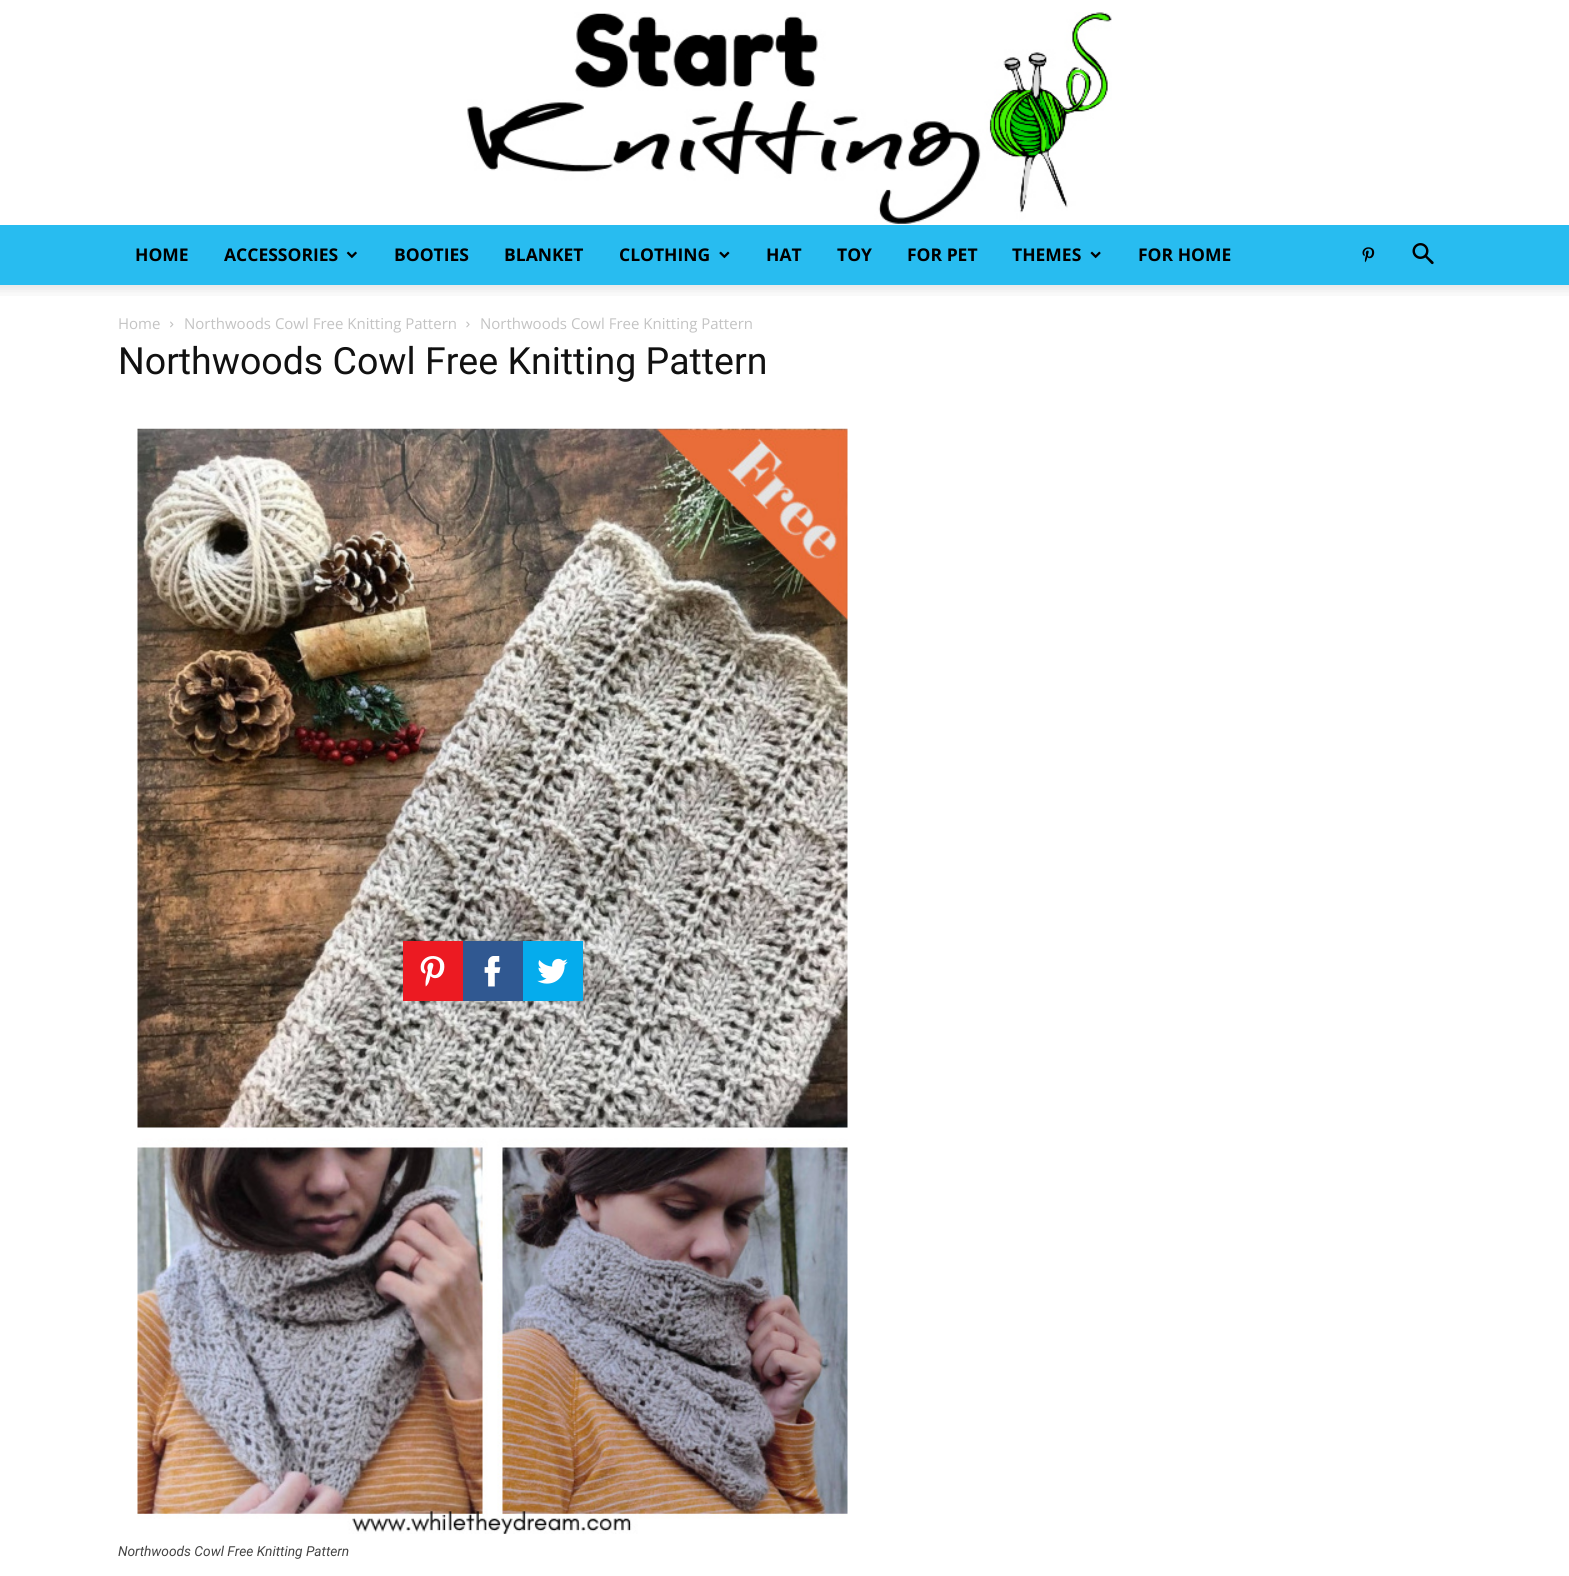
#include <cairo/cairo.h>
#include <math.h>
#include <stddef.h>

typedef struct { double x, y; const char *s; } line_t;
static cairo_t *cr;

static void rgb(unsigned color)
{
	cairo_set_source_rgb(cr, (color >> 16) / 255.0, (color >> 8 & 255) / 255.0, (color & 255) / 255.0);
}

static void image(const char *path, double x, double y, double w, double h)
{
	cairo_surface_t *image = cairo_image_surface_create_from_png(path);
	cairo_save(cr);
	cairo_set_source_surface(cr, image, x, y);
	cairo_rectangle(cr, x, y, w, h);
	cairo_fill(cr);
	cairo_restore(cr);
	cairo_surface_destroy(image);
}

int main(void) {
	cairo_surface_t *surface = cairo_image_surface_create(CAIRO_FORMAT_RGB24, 1569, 1576);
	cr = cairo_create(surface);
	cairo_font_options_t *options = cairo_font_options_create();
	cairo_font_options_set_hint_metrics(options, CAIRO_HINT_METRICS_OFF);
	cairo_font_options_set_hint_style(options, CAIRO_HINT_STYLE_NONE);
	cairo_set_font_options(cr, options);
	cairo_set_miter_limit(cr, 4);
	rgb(0xffffff);
	cairo_paint(cr);
	image("img/1.png", 467, 12, 645, 212);
	rgb(0x28bcf0);
	cairo_rectangle(cr, 0, 225, 1569, 60);
	cairo_fill(cr);
	image("img/2.png", 346, 251, 11, 8);
	image("img/3.png", 719, 251, 11, 8);
	image("img/4.png", 1090, 251, 11, 8);
	image("img/5.png", 1362, 247, 13, 16);
	image("img/6.png", 1412, 243, 22, 22);
	image("img/7.png", 0, 285, 1569, 11);
	image("img/8.png", 170, 321, 4, 7);
	image("img/9.png", 466, 321, 4, 7);
	image("img/10.png", 137, 428, 711, 1106);
	rgb(0xec1a22);
	cairo_rectangle(cr, 403, 941, 60, 60);
	cairo_fill(cr);
	image("img/11.png", 420, 956, 25, 31);
	rgb(0x305891);
	cairo_rectangle(cr, 463, 941, 60, 60);
	cairo_fill(cr);
	image("img/12.png", 484, 956, 17, 31);
	rgb(0x05aced);
	cairo_rectangle(cr, 523, 941, 60, 60);
	cairo_fill(cr);
	image("img/13.png", 537, 958, 31, 26);
	cairo_select_font_face(cr, "Open Sans", CAIRO_FONT_SLANT_NORMAL, CAIRO_FONT_WEIGHT_BOLD);
	cairo_set_font_size(cr, 17.5);
	rgb(0x000000);
	{
		static const line_t items[] = {
			{135, 261, "HOME"},
			{224, 261, "ACCESSORIES"},
			{394, 261, "BOOTIES"},
			{504, 261, "BLANKET"},
			{619, 261, "CLOTHING"},
			{766, 261, "HAT"},
			{837, 261, "TOY"},
			{907, 261, "FOR PET"},
			{1012, 261, "THEMES"},
			{1138, 261, "FOR HOME"},
		};
		for (size_t i = 0; i < sizeof items / sizeof *items; i++) {
			cairo_move_to(cr, items[i].x, items[i].y);
			cairo_show_text(cr, items[i].s);
		}
	}
	cairo_select_font_face(cr, "Open Sans", CAIRO_FONT_SLANT_NORMAL, CAIRO_FONT_WEIGHT_NORMAL);
	cairo_set_font_size(cr, 15);
	rgb(0xc3c3c3);
	{
		static const line_t items[] = {
			{118, 329, "Home"},
			{184, 329, "Northwoods Cowl Free Knitting Pattern"},
			{480, 329, "Northwoods Cowl Free Knitting Pattern"},
		};
		for (size_t i = 0; i < sizeof items / sizeof *items; i++) {
			cairo_move_to(cr, items[i].x, items[i].y);
			cairo_show_text(cr, items[i].s);
		}
	}
	cairo_select_font_face(cr, "Roboto", CAIRO_FONT_SLANT_NORMAL, CAIRO_FONT_WEIGHT_NORMAL);
	cairo_set_font_size(cr, 37.5);
	rgb(0x111111);
	cairo_move_to(cr, 118, 374);
	cairo_show_text(cr, "Northwoods Cowl Free Knitting Pattern");
	cairo_select_font_face(cr, "Roboto", CAIRO_FONT_SLANT_ITALIC, CAIRO_FONT_WEIGHT_NORMAL);
	cairo_set_font_size(cr, 13.75);
	rgb(0x444444);
	cairo_move_to(cr, 118, 1556);
	cairo_show_text(cr, "Northwoods Cowl Free Knitting Pattern");
	cairo_surface_write_to_png(surface, "page.png");
	cairo_font_options_destroy(options);
	cairo_destroy(cr);
	cairo_surface_destroy(surface);
	return 0;
}
